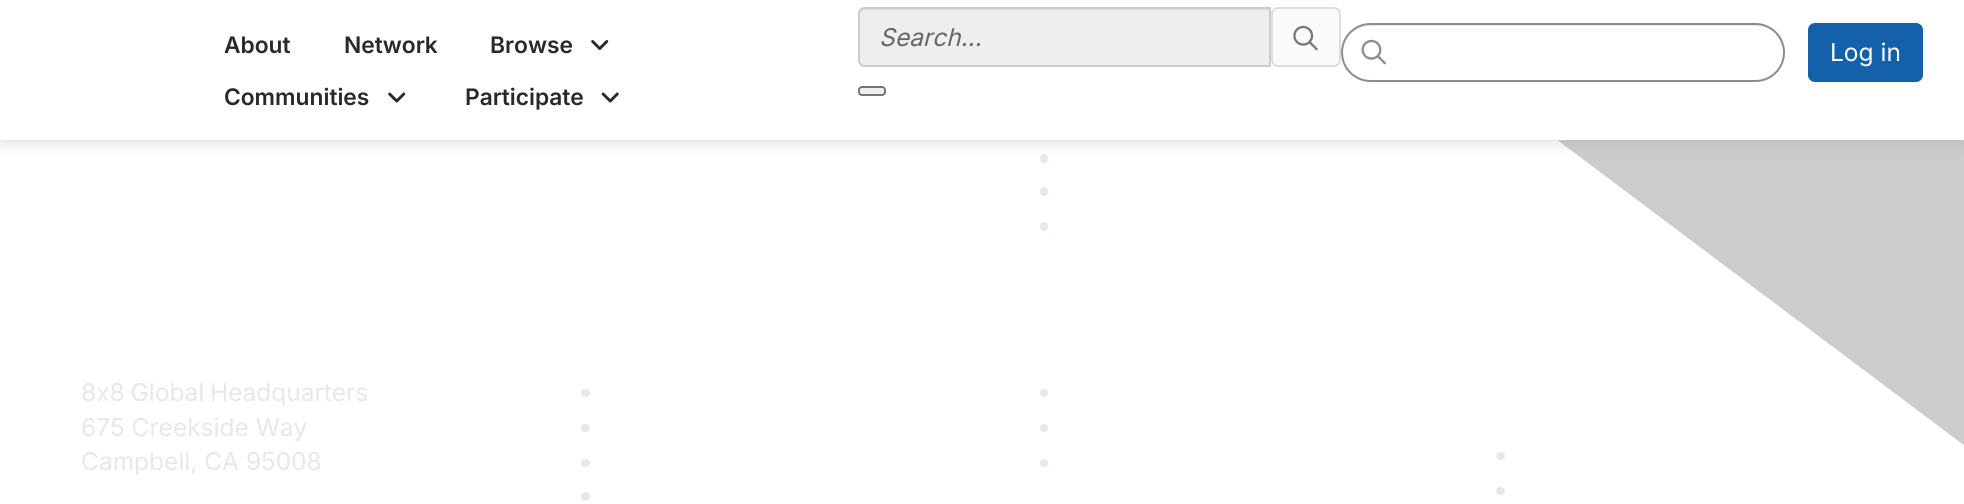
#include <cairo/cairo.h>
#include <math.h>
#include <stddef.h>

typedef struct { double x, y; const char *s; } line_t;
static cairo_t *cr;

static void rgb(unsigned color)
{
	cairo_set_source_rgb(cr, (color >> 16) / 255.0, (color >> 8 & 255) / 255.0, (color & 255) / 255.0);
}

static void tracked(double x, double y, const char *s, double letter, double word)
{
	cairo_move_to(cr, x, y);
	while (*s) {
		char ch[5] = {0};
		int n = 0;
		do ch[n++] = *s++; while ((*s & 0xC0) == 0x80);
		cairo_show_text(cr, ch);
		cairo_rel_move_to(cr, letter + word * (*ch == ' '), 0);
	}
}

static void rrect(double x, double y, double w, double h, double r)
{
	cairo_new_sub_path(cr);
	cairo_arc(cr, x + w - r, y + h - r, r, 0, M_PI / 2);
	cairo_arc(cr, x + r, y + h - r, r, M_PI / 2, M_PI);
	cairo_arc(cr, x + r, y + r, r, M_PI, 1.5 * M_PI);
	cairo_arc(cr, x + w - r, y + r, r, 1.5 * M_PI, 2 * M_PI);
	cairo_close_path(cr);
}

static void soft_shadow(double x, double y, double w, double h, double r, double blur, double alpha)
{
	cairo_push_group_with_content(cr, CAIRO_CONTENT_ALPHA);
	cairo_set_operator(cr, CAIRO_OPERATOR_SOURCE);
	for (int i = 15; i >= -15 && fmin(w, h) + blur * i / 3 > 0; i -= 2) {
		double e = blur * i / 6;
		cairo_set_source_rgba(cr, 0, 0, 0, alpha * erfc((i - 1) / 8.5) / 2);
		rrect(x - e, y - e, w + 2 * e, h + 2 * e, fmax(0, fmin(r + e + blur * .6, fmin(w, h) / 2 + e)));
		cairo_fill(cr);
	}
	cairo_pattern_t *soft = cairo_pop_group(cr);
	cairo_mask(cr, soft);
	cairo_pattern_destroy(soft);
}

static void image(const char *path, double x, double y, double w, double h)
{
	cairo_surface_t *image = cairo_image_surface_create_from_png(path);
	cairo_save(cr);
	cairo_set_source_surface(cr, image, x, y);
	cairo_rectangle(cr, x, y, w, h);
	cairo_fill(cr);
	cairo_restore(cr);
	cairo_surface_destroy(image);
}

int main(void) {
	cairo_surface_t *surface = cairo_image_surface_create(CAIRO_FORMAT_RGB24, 1964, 504);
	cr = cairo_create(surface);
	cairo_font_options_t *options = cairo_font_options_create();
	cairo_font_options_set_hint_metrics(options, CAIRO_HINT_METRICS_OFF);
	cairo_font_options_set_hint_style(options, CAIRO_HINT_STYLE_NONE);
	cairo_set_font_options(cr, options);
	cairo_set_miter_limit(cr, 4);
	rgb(0xffffff);
	cairo_paint(cr);
	rgb(0xe5e9eb);
	rrect(1040, 154, 8, 9, 4);
	cairo_fill(cr);
	rgb(0xcccccc);
	cairo_new_path(cr);
	cairo_move_to(cr, 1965, 52);
	cairo_line_to(cr, 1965, 446);
	cairo_line_to(cr, 1440, 52);
	cairo_close_path(cr);
	cairo_fill(cr);
	rgb(0x838791);
	soft_shadow(0, 4, 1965, 140, 0, 7, 0.24);
	rgb(0xffffff);
	cairo_rectangle(cr, 0, 0, 1964, 140);
	cairo_fill(cr);
	image("img/1.png", 591, 40, 18, 10);
	image("img/2.png", 388, 92, 18, 11);
	image("img/3.png", 601, 92, 18, 11);
	rgb(0xeeeeee);
	cairo_new_path(cr);
	cairo_move_to(cr, 865, 7);
	cairo_line_to(cr, 1271, 7);
	cairo_line_to(cr, 1271, 67);
	cairo_line_to(cr, 865, 67);
	cairo_curve_to(cr, 861, 67, 858, 64, 858, 60);
	cairo_line_to(cr, 858, 14);
	cairo_curve_to(cr, 858, 10, 861, 7, 865, 7);
	cairo_close_path(cr);
	cairo_fill(cr);
	rgb(0xdcdcdc);
	cairo_new_path(cr);
	cairo_move_to(cr, 864, 10);
	cairo_line_to(cr, 1269, 10);
	cairo_line_to(cr, 1269, 9);
	cairo_line_to(cr, 864, 9);
	cairo_curve_to(cr, 860, 9, 859, 13, 859, 16);
	cairo_curve_to(cr, 859, 13, 862, 10, 864, 10);
	cairo_close_path(cr);
	cairo_fill(cr);
	cairo_new_path(cr);
	cairo_move_to(cr, 865, 8);
	cairo_line_to(cr, 1270, 8);
	cairo_line_to(cr, 1270, 66);
	cairo_line_to(cr, 865, 66);
	cairo_curve_to(cr, 861.5, 66, 859, 63.5, 859, 60);
	cairo_line_to(cr, 859, 14);
	cairo_curve_to(cr, 859, 10.5, 861.5, 8, 865, 8);
	cairo_close_path(cr);
	rgb(0xcccccc);
	cairo_stroke(cr);
	rgb(0xfafafa);
	rrect(1272, 8, 68, 58, 6);
	cairo_fill_preserve(cr);
	rgb(0xdedede);
	cairo_stroke(cr);
	image("img/4.png", 1293, 25, 25, 26);
	rgb(0xefefef);
	rrect(859, 87, 26, 8, 3);
	cairo_fill_preserve(cr);
	rgb(0x767676);
	cairo_stroke(cr);
	rgb(0xececec);
	cairo_new_path(cr);
	cairo_move_to(cr, 1370, 26);
	cairo_line_to(cr, 1755, 26);
	cairo_curve_to(cr, 1771, 26, 1783, 39, 1783, 54);
	cairo_curve_to(cr, 1783, 38, 1770, 25, 1755, 25);
	cairo_line_to(cr, 1370, 25);
	cairo_curve_to(cr, 1355, 25, 1342, 38, 1342, 54);
	cairo_curve_to(cr, 1342, 39, 1355, 26, 1370, 26);
	cairo_close_path(cr);
	cairo_fill(cr);
	rrect(1342, 24, 442, 57, 28.5);
	rgb(0x8c8c8c);
	cairo_stroke(cr);
	image("img/5.png", 1361, 39, 25, 26);
	rgb(0x1460aa);
	rrect(1809, 24, 113, 57, 6);
	cairo_fill_preserve(cr);
	cairo_stroke(cr);
	rgb(0xe5e9eb);
	rrect(1040, 187, 8, 9, 4);
	cairo_fill(cr);
	rrect(1040, 222, 8, 9, 4);
	cairo_fill(cr);
	rrect(581, 389, 9, 8, 4);
	cairo_fill(cr);
	rrect(581, 424, 9, 8, 4);
	cairo_fill(cr);
	rrect(581, 459, 9, 8, 4);
	cairo_fill(cr);
	cairo_arc(cr, 585.5, 496.5, 4.5, 0, 2 * M_PI);
	cairo_fill(cr);
	cairo_arc(cr, 1044, 393, 4, 0, 2 * M_PI);
	cairo_fill(cr);
	cairo_arc(cr, 1044, 428, 4, 0, 2 * M_PI);
	cairo_fill(cr);
	cairo_arc(cr, 1044, 463, 4, 0, 2 * M_PI);
	cairo_fill(cr);
	rrect(1496, 452, 9, 8, 4);
	cairo_fill(cr);
	rrect(1496, 487, 9, 8, 4);
	cairo_fill(cr);
	cairo_select_font_face(cr, "Inter SemiBold", CAIRO_FONT_SLANT_NORMAL, CAIRO_FONT_WEIGHT_NORMAL);
	cairo_set_font_size(cr, 22.75);
	rgb(0x292929);
	{
		static const line_t items[] = {
			{224, 53, "About"},
			{344, 53, "Network"},
			{490, 53, "Browse"},
			{224, 105, "Communities"},
			{465, 105, "Participate"},
		};
		for (size_t i = 0; i < sizeof items / sizeof *items; i++) {
			cairo_move_to(cr, items[i].x, items[i].y);
			cairo_show_text(cr, items[i].s);
		}
	}
	cairo_select_font_face(cr, "Inter", CAIRO_FONT_SLANT_ITALIC, CAIRO_FONT_WEIGHT_NORMAL);
	cairo_set_font_size(cr, 24.5);
	rgb(0x666666);
	cairo_move_to(cr, 879, 46);
	cairo_show_text(cr, "Search...");
	cairo_select_font_face(cr, "Inter", CAIRO_FONT_SLANT_NORMAL, CAIRO_FONT_WEIGHT_NORMAL);
	rgb(0xffffff);
	cairo_move_to(cr, 1830, 61);
	cairo_show_text(cr, "Log in");
	rgb(0xe5e9eb);
	tracked(81, 401, "8x8 Global Headquarters", 0, -1);
	cairo_move_to(cr, 81, 436);
	cairo_show_text(cr, "675 Creekside Way");
	cairo_move_to(cr, 81, 470);
	cairo_show_text(cr, "Campbell, CA 95008");
	cairo_surface_write_to_png(surface, "page.png");
	cairo_font_options_destroy(options);
	cairo_destroy(cr);
	cairo_surface_destroy(surface);
	return 0;
}
